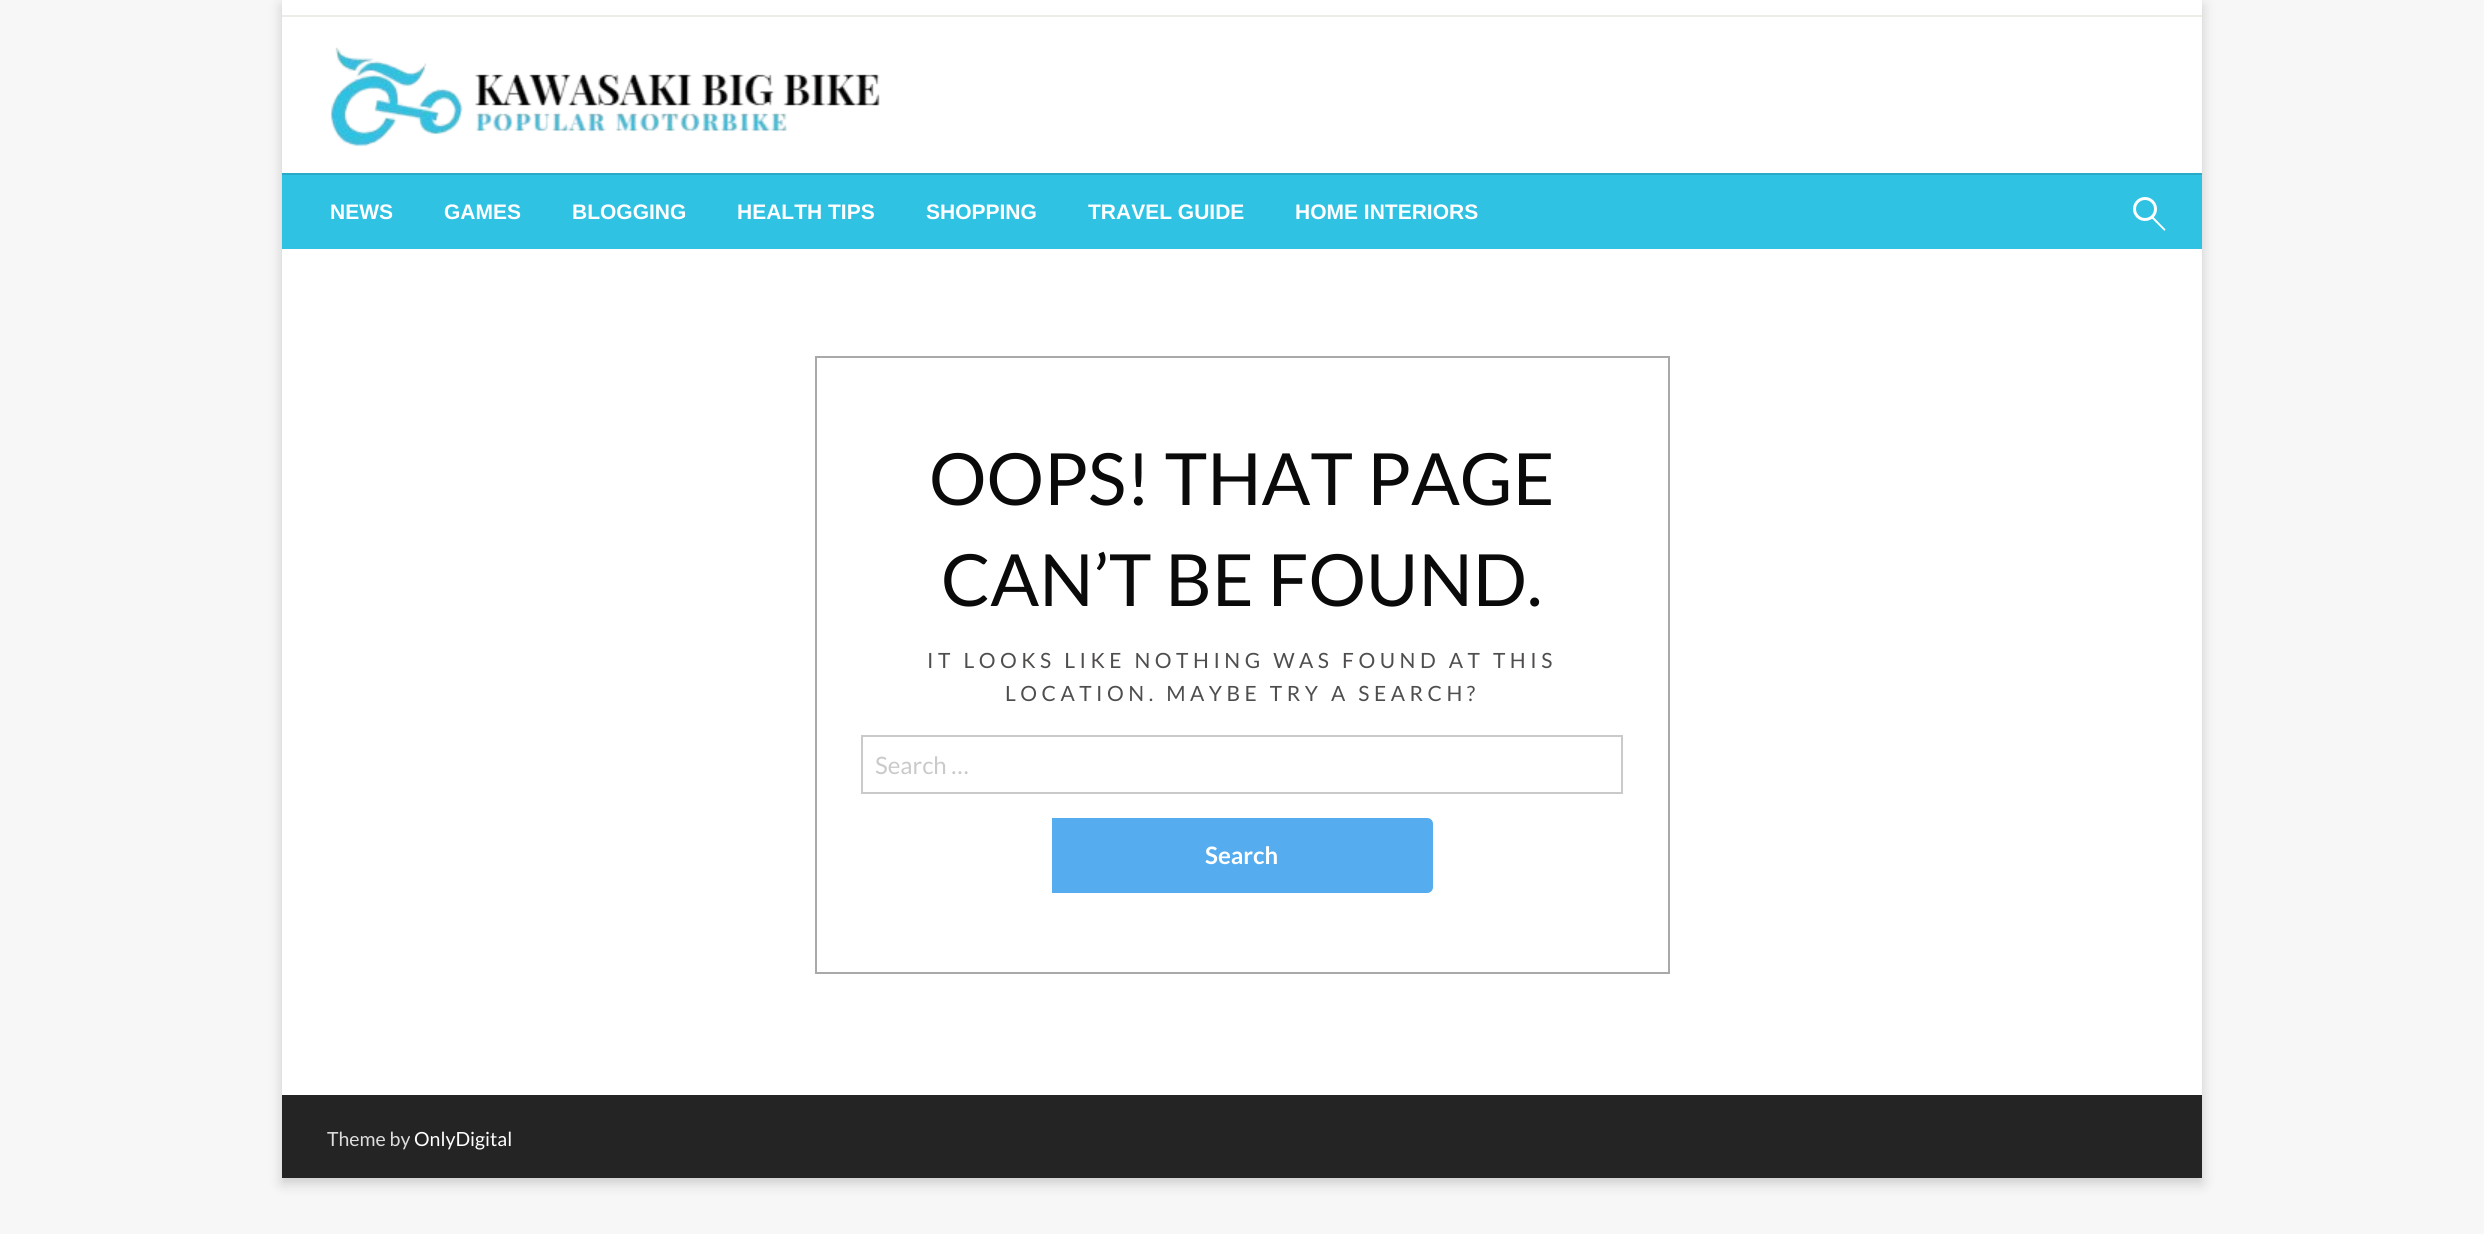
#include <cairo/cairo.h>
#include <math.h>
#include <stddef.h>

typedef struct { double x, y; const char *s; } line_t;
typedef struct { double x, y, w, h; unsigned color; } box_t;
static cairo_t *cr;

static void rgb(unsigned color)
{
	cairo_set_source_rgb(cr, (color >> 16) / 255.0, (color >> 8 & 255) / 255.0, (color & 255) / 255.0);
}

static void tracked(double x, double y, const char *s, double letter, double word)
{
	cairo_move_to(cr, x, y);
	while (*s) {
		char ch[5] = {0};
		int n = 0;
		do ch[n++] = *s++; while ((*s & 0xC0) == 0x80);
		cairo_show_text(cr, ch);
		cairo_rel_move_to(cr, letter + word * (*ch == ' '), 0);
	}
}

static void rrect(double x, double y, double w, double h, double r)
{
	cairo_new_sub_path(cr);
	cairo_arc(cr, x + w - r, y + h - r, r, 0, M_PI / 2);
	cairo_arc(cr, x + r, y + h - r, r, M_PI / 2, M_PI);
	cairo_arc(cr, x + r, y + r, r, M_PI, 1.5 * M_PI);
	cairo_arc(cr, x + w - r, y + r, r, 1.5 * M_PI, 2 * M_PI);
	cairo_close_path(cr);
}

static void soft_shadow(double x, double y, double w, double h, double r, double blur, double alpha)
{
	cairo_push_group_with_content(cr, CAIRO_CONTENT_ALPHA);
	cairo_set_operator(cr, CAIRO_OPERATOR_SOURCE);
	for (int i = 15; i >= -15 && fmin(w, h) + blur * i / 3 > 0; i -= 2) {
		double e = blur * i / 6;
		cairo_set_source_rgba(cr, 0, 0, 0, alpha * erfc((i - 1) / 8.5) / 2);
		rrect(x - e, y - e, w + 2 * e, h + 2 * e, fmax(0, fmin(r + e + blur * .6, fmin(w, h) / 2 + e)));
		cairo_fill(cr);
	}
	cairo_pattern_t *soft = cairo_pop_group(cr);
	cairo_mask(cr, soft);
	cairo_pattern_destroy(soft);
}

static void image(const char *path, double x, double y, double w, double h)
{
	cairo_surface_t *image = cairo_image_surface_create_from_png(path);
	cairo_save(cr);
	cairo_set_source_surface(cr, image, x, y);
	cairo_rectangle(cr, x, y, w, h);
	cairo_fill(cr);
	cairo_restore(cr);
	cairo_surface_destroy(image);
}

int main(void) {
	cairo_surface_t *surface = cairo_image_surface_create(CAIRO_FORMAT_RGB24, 2484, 1234);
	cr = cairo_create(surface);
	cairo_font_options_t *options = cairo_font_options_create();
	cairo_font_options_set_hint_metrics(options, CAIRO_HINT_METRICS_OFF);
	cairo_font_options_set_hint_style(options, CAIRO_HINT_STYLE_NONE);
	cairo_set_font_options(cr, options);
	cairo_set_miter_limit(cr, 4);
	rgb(0xf7f7f7);
	cairo_paint(cr);
	rgb(0x000000);
	soft_shadow(282, 5, 1920, 1177, 0, 7.5, 0.09);
	soft_shadow(282, 6, 1920, 1178, 0, 6, 0.1);
	{
		static const box_t items[] = {
			{282, 0, 1920, 15, 0xffffff},
			{282, 15, 1920, 2, 0xecede7},
			{282, 17, 1920, 156, 0xffffff},
		};
		for (size_t i = 0; i < sizeof items / sizeof *items; i++) {
			rgb(items[i].color);
			cairo_rectangle(cr, items[i].x, items[i].y, items[i].w, items[i].h);
			cairo_fill(cr);
		}
	}
	image("img/1.png", 330, 47, 550, 100);
	rgb(0x2fc2e3);
	cairo_rectangle(cr, 282, 175, 1920, 74);
	cairo_fill(cr);
	rgb(0x29abc8);
	cairo_rectangle(cr, 282, 173, 1920, 2);
	cairo_fill(cr);
	cairo_arc(cr, 2145, 209, 10.5, 0, 2 * M_PI);
	rgb(0xffffff);
	cairo_set_line_width(cr, 3);
	cairo_stroke(cr);
	cairo_new_path(cr);
	cairo_move_to(cr, 2153, 216.5);
	cairo_line_to(cr, 2165.5, 229.5);
	cairo_curve_to(cr, 2165.5, 230, 2164.5, 231, 2164, 230.5);
	cairo_line_to(cr, 2151.5, 218);
	cairo_curve_to(cr, 2150.5, 217, 2152, 215.5, 2153, 216.5);
	cairo_close_path(cr);
	cairo_fill(cr);
	cairo_rectangle(cr, 282, 249, 1920, 846);
	cairo_fill(cr);
	cairo_rectangle(cr, 816, 357, 853, 616);
	rgb(0xa9a9a9);
	cairo_set_line_width(cr, 2);
	cairo_stroke(cr);
	cairo_rectangle(cr, 862, 736, 760, 57);
	rgb(0xcacaca);
	cairo_stroke(cr);
	rgb(0x55acee);
	cairo_new_path(cr);
	cairo_move_to(cr, 1052, 818);
	cairo_line_to(cr, 1427, 818);
	cairo_curve_to(cr, 1430.5, 818, 1433, 820.5, 1433, 824);
	cairo_line_to(cr, 1433, 887);
	cairo_curve_to(cr, 1433, 890.5, 1430.5, 893, 1427, 893);
	cairo_line_to(cr, 1052, 893);
	cairo_close_path(cr);
	cairo_fill(cr);
	rgb(0x242424);
	cairo_rectangle(cr, 282, 1095, 1920, 83);
	cairo_fill(cr);
	cairo_select_font_face(cr, "Liberation Sans", CAIRO_FONT_SLANT_NORMAL, CAIRO_FONT_WEIGHT_BOLD);
	cairo_set_font_size(cr, 21);
	rgb(0xffffff);
	{
		static const line_t items[] = {
			{330, 219, "NEWS"},
			{444, 219, "GAMES"},
			{572, 219, "BLOGGING"},
			{737, 219, "HEALTH TIPS"},
			{926, 219, "SHOPPING"},
			{1088, 219, "TRAVEL GUIDE"},
			{1295, 219, "HOME INTERIORS"},
		};
		for (size_t i = 0; i < sizeof items / sizeof *items; i++) {
			cairo_move_to(cr, items[i].x, items[i].y);
			cairo_show_text(cr, items[i].s);
		}
	}
	cairo_select_font_face(cr, "Lato", CAIRO_FONT_SLANT_NORMAL, CAIRO_FONT_WEIGHT_NORMAL);
	cairo_set_font_size(cr, 72);
	rgb(0x0a0a0a);
	cairo_move_to(cr, 929, 505);
	cairo_show_text(cr, "OOPS! THAT PAGE");
	cairo_move_to(cr, 941, 606);
	cairo_show_text(cr, "CAN’T BE FOUND.");
	cairo_set_font_size(cr, 21);
	rgb(0x504d4d);
	tracked(927, 668, "IT LOOKS LIKE NOTHING WAS FOUND AT THIS", 4.5, 0);
	tracked(1005, 701, "LOCATION. MAYBE TRY A SEARCH?", 4.5, 0);
	cairo_set_font_size(cr, 24);
	rgb(0xcacaca);
	cairo_move_to(cr, 875, 774);
	cairo_show_text(cr, "Search …");
	cairo_select_font_face(cr, "Lato", CAIRO_FONT_SLANT_NORMAL, CAIRO_FONT_WEIGHT_BOLD);
	rgb(0xffffff);
	cairo_move_to(cr, 1205, 864);
	cairo_show_text(cr, "Search");
	cairo_select_font_face(cr, "Lato", CAIRO_FONT_SLANT_NORMAL, CAIRO_FONT_WEIGHT_NORMAL);
	cairo_set_font_size(cr, 19.5);
	rgb(0xdddddd);
	cairo_move_to(cr, 327, 1146);
	cairo_show_text(cr, "Theme by");
	rgb(0xffffff);
	cairo_move_to(cr, 414, 1146);
	cairo_show_text(cr, "OnlyDigital");
	cairo_surface_write_to_png(surface, "page.png");
	cairo_font_options_destroy(options);
	cairo_destroy(cr);
	cairo_surface_destroy(surface);
	return 0;
}
